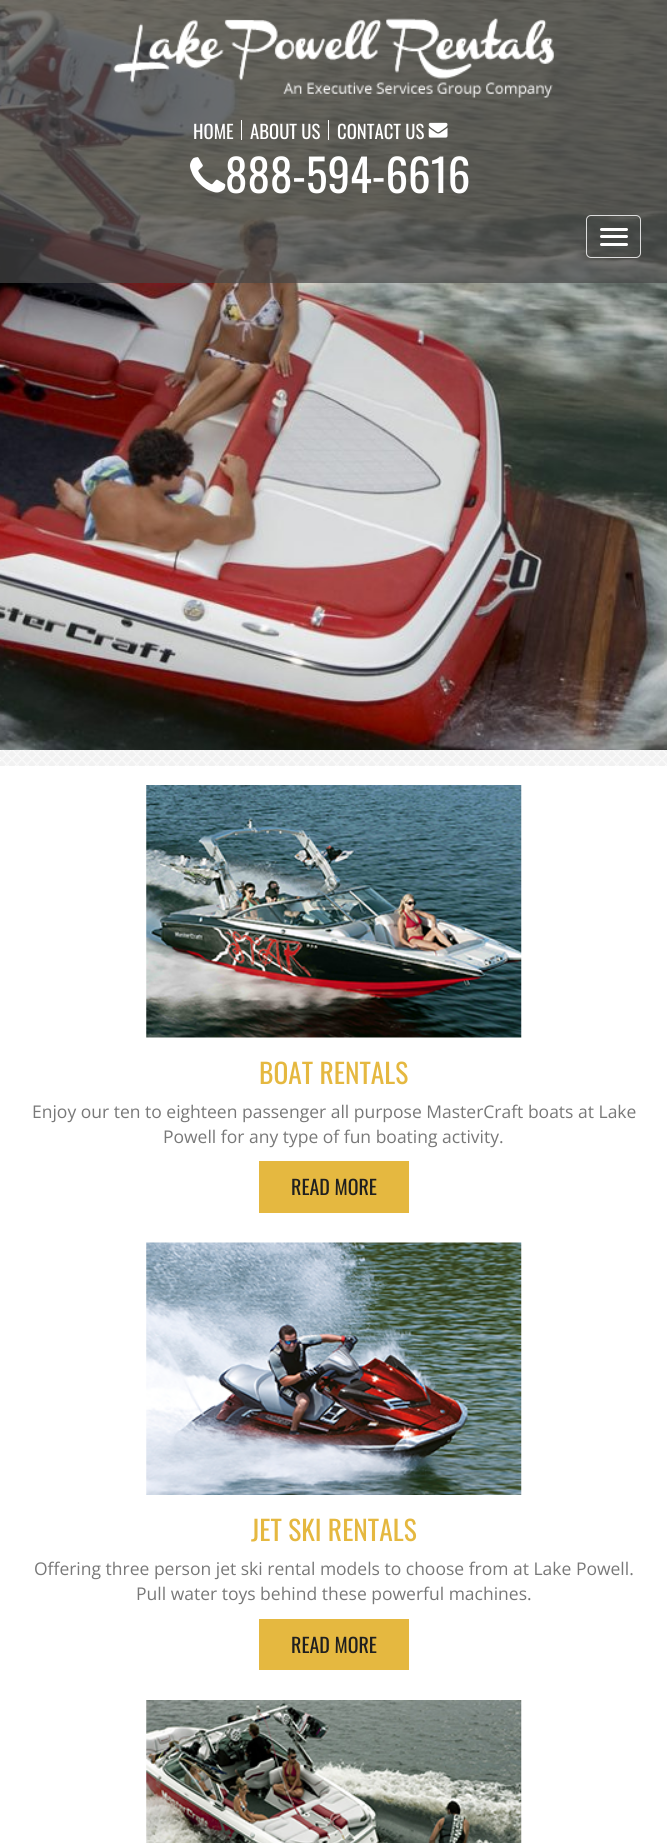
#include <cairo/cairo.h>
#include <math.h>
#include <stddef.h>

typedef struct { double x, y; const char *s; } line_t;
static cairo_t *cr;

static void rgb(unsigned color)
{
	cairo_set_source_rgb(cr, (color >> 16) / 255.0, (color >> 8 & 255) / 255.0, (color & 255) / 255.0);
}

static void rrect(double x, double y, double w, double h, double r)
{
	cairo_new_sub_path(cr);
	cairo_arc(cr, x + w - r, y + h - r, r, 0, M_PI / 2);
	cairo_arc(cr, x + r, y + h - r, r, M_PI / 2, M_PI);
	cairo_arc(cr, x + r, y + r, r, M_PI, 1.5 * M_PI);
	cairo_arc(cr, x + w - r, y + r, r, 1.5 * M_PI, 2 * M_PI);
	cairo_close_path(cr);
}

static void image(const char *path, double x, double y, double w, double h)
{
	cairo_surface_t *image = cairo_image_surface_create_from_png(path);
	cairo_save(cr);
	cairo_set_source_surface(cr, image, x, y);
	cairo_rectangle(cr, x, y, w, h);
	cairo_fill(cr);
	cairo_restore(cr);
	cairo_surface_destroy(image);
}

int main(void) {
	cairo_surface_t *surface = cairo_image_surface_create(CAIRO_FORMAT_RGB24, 667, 1843);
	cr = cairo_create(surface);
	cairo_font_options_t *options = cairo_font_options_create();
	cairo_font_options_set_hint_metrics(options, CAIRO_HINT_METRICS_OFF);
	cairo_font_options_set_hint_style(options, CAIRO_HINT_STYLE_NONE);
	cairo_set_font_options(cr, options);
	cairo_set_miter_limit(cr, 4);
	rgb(0xffffff);
	cairo_paint(cr);
	image("img/1.png", 0, 750, 667, 16);
	image("img/2.png", 0, 0, 667, 750);
	cairo_set_source_rgba(cr, 0.275, 0.275, 0.275, 0.7);
	cairo_rectangle(cr, 0, 0, 667, 204);
	cairo_fill(cr);
	image("img/3.png", 113, 18, 441, 80);
	rgb(0xffffff);
	cairo_rectangle(cr, 241, 120, 1, 20);
	cairo_fill(cr);
	cairo_rectangle(cr, 328, 120, 1, 20);
	cairo_fill(cr);
	image("img/4.png", 428, 122, 20, 16);
	image("img/5.png", 190, 157, 36, 36);
	cairo_set_source_rgba(cr, 0.275, 0.275, 0.275, 0.7);
	cairo_rectangle(cr, 0, 204, 667, 79);
	cairo_fill(cr);
	rrect(586.5, 215.5, 54, 42, 4.5);
	rgb(0xdddddd);
	cairo_set_line_width(cr, 1);
	cairo_stroke(cr);
	rgb(0xffffff);
	rrect(600, 228, 28, 3, 1.5);
	cairo_fill(cr);
	rrect(600, 235, 28, 3, 1.5);
	cairo_fill(cr);
	rrect(600, 243, 28, 3, 1.5);
	cairo_fill(cr);
	image("img/6.png", 146, 785, 376, 253);
	rgb(0xe5b840);
	cairo_rectangle(cr, 259, 1161, 150, 52);
	cairo_fill(cr);
	image("img/7.png", 146, 1242, 376, 253);
	cairo_rectangle(cr, 259, 1619, 150, 51);
	cairo_fill(cr);
	image("img/8.png", 146, 1700, 376, 143);
	cairo_select_font_face(cr, "Oswald", CAIRO_FONT_SLANT_NORMAL, CAIRO_FONT_WEIGHT_NORMAL);
	cairo_set_font_size(cr, 18.75);
	rgb(0xffffff);
	{
		static const line_t items[] = {
			{193, 139, "HOME"},
			{250, 139, "ABOUT US"},
			{337, 139, "CONTACT US"},
		};
		for (size_t i = 0; i < sizeof items / sizeof *items; i++) {
			cairo_move_to(cr, items[i].x, items[i].y);
			cairo_show_text(cr, items[i].s);
		}
	}
	cairo_set_font_size(cr, 45);
	cairo_move_to(cr, 225, 193);
	cairo_show_text(cr, "888-594-6616");
	cairo_set_font_size(cr, 27.5);
	rgb(0xe5b840);
	cairo_move_to(cr, 259, 1084);
	cairo_show_text(cr, "BOAT RENTALS");
	cairo_select_font_face(cr, "Open Sans", CAIRO_FONT_SLANT_NORMAL, CAIRO_FONT_WEIGHT_NORMAL);
	cairo_set_font_size(cr, 17.5);
	rgb(0x787878);
	cairo_move_to(cr, 32, 1118);
	cairo_show_text(cr, "Enjoy our ten to eighteen passenger all purpose MasterCraft boats at Lake");
	cairo_move_to(cr, 163, 1143);
	cairo_show_text(cr, "Powell for any type of fun boating activity.");
	cairo_select_font_face(cr, "Oswald", CAIRO_FONT_SLANT_NORMAL, CAIRO_FONT_WEIGHT_NORMAL);
	cairo_set_font_size(cr, 20);
	rgb(0x1f1f1f);
	cairo_move_to(cr, 291, 1195);
	cairo_show_text(cr, "READ MORE");
	cairo_set_font_size(cr, 27.5);
	rgb(0xe5b840);
	cairo_move_to(cr, 251, 1541);
	cairo_show_text(cr, "JET SKI RENTALS");
	cairo_select_font_face(cr, "Open Sans", CAIRO_FONT_SLANT_NORMAL, CAIRO_FONT_WEIGHT_NORMAL);
	cairo_set_font_size(cr, 17.5);
	rgb(0x787878);
	cairo_move_to(cr, 34, 1575);
	cairo_show_text(cr, "Offering three person jet ski rental models to choose from at Lake Powell.");
	cairo_move_to(cr, 136, 1600);
	cairo_show_text(cr, "Pull water toys behind these powerful machines.");
	cairo_select_font_face(cr, "Oswald", CAIRO_FONT_SLANT_NORMAL, CAIRO_FONT_WEIGHT_NORMAL);
	cairo_set_font_size(cr, 20);
	rgb(0x1f1f1f);
	cairo_move_to(cr, 291, 1653);
	cairo_show_text(cr, "READ MORE");
	cairo_surface_write_to_png(surface, "page.png");
	cairo_font_options_destroy(options);
	cairo_destroy(cr);
	cairo_surface_destroy(surface);
	return 0;
}
